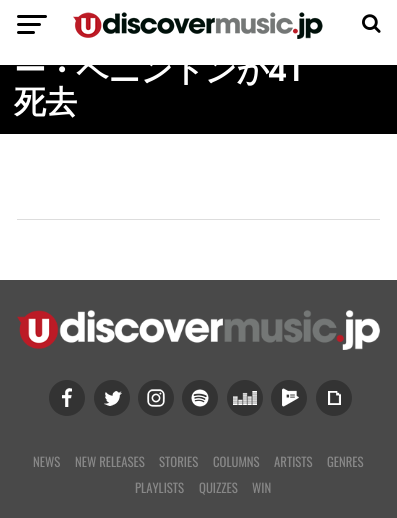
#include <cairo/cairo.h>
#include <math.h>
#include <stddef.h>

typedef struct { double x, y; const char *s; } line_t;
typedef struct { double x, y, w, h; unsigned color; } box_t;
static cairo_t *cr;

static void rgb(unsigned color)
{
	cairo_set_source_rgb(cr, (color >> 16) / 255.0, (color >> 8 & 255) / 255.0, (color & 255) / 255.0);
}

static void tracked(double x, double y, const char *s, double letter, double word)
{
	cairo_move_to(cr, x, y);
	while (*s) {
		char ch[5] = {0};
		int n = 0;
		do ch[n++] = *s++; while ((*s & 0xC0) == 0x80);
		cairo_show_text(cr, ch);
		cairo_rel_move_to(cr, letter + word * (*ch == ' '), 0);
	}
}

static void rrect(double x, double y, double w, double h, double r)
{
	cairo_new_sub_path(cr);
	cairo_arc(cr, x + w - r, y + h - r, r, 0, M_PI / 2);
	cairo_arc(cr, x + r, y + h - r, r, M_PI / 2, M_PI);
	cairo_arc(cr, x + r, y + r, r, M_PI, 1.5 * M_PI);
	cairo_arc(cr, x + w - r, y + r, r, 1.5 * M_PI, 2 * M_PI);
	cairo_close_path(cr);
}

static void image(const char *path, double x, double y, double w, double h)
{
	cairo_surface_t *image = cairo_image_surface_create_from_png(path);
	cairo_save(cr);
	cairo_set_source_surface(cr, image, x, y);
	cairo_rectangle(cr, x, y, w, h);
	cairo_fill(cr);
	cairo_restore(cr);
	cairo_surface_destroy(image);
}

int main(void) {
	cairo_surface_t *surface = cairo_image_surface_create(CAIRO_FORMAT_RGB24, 397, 518);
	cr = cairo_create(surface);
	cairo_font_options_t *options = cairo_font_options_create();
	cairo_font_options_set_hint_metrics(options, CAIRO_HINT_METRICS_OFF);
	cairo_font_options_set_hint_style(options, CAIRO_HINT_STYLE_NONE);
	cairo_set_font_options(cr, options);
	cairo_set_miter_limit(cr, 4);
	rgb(0xffffff);
	cairo_paint(cr);
	rgb(0x000000);
	rrect(17, 15, 30, 3, 1.5);
	cairo_fill(cr);
	rrect(17, 23, 24, 3, 1.5);
	cairo_fill(cr);
	rrect(17, 31, 18, 3, 1.5);
	cairo_fill(cr);
	image("img/1.png", 73, 12, 250, 27);
	image("img/2.png", 362, 14, 19, 19);
	{
		static const box_t items[] = {
			{0, 65, 397, 69, 0x000000},
			{17, 219, 363, 1, 0xdddddd},
			{0, 280, 397, 238, 0x494949},
		};
		for (size_t i = 0; i < sizeof items / sizeof *items; i++) {
			rgb(items[i].color);
			cairo_rectangle(cr, items[i].x, items[i].y, items[i].w, items[i].h);
			cairo_fill(cr);
		}
	}
	image("img/3.png", 17, 310, 363, 40);
	rgb(0x333333);
	cairo_arc(cr, 67, 398, 18, 0, 2 * M_PI);
	cairo_fill(cr);
	image("img/4.png", 62, 388, 10, 19);
	cairo_arc(cr, 112, 398, 18, 0, 2 * M_PI);
	cairo_fill(cr);
	image("img/5.png", 104, 391, 18, 15);
	cairo_arc(cr, 156, 398, 18, 0, 2 * M_PI);
	cairo_fill(cr);
	image("img/6.png", 147, 389, 18, 18);
	cairo_arc(cr, 200, 398, 18, 0, 2 * M_PI);
	cairo_fill(cr);
	image("img/7.png", 191, 389, 18, 18);
	cairo_arc(cr, 245, 398, 18, 0, 2 * M_PI);
	cairo_fill(cr);
	image("img/8.png", 233, 391, 24, 14);
	cairo_arc(cr, 289, 398, 18, 0, 2 * M_PI);
	cairo_fill(cr);
	image("img/9.png", 282, 388, 17, 19);
	cairo_arc(cr, 334, 398, 18, 0, 2 * M_PI);
	cairo_fill(cr);
	image("img/10.png", 328, 391, 13, 14);
	cairo_save(cr);
	cairo_rectangle(cr, 0, 65, 397, 69);
	cairo_clip(cr);
	cairo_select_font_face(cr, "WenQuanYi Zen Hei", CAIRO_FONT_SLANT_NORMAL, CAIRO_FONT_WEIGHT_BOLD);
	cairo_set_font_size(cr, 32);
	rgb(0xffffff);
	tracked(14, 81, "ー・ベニントンが", -0.75, 0);
	cairo_select_font_face(cr, "TeX Gyre Adventor", CAIRO_FONT_SLANT_NORMAL, CAIRO_FONT_WEIGHT_BOLD);
	tracked(269, 81, "41", -0.75, 0);
	cairo_restore(cr);
	cairo_select_font_face(cr, "WenQuanYi Zen Hei", CAIRO_FONT_SLANT_NORMAL, CAIRO_FONT_WEIGHT_BOLD);
	cairo_set_font_size(cr, 32);
	rgb(0xffffff);
	tracked(14, 113, "死去", -0.75, 0);
	cairo_select_font_face(cr, "Oswald", CAIRO_FONT_SLANT_NORMAL, CAIRO_FONT_WEIGHT_NORMAL);
	cairo_set_font_size(cr, 12.75);
	rgb(0x888888);
	{
		static const line_t items[] = {
			{33, 467, "NEWS"},
			{75, 467, "NEW RELEASES"},
			{159, 467, "STORIES"},
			{213, 467, "COLUMNS"},
			{274, 467, "ARTISTS"},
			{327, 467, "GENRES"},
			{135, 493, "PLAYLISTS"},
			{199, 493, "QUIZZES"},
			{252, 493, "WIN"},
		};
		for (size_t i = 0; i < sizeof items / sizeof *items; i++) {
			cairo_move_to(cr, items[i].x, items[i].y);
			cairo_show_text(cr, items[i].s);
		}
	}
	cairo_surface_write_to_png(surface, "page.png");
	cairo_font_options_destroy(options);
	cairo_destroy(cr);
	cairo_surface_destroy(surface);
	return 0;
}
